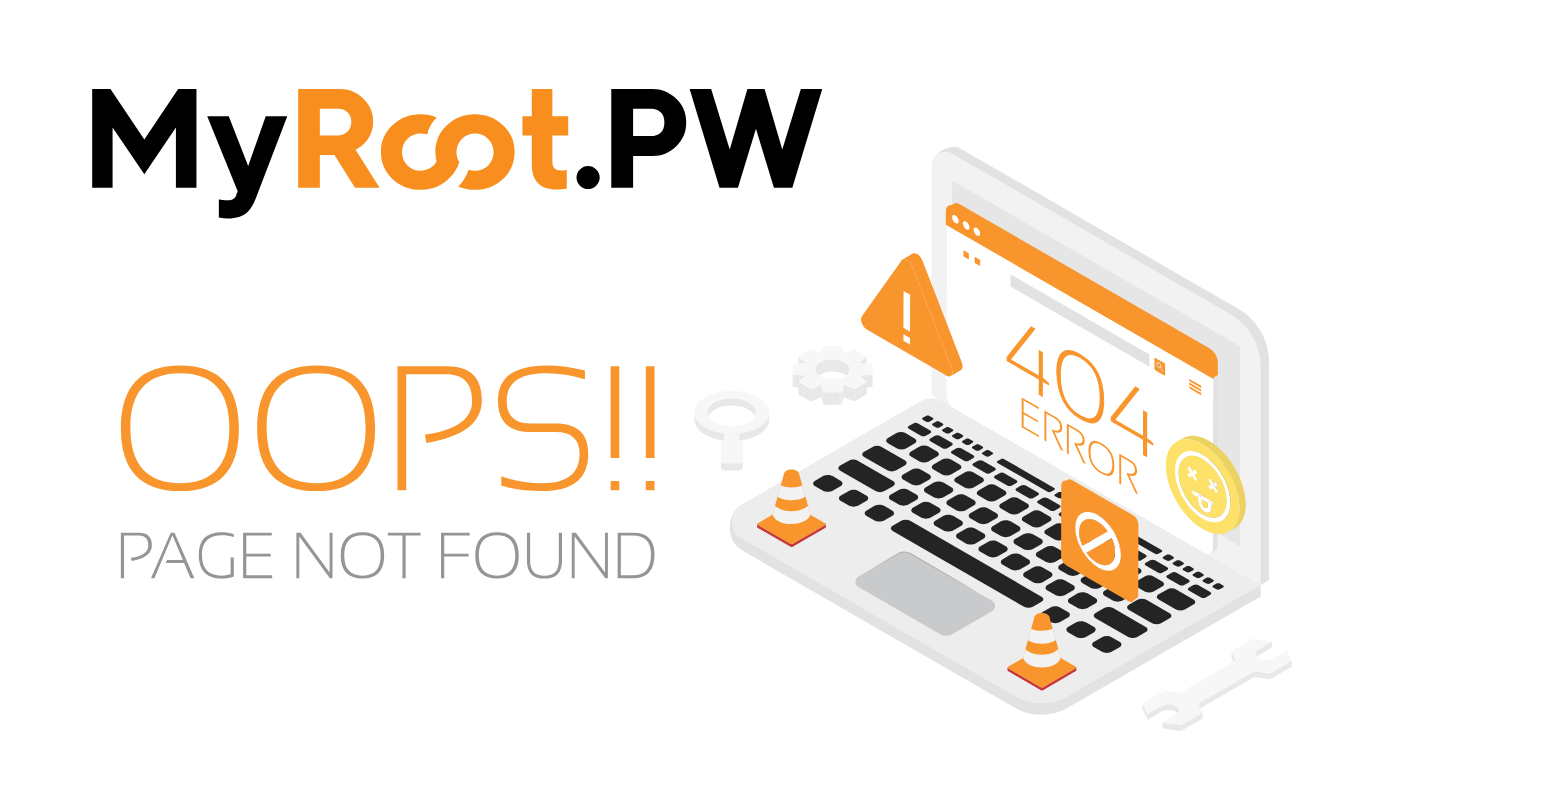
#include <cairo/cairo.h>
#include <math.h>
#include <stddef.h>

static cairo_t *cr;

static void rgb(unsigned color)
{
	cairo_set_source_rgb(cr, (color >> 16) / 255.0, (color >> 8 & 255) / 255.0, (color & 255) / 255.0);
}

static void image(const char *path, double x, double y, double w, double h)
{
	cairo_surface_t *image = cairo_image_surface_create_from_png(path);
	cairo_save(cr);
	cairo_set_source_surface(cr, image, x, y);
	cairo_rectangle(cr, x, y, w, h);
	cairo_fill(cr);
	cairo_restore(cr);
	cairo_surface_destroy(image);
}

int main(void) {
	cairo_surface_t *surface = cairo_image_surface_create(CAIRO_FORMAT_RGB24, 1549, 793);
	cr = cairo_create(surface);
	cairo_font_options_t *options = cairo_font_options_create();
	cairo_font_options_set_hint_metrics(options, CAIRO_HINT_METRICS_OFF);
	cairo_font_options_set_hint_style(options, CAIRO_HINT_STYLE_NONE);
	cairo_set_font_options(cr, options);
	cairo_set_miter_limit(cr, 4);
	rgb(0xffffff);
	cairo_paint(cr);
	image("img/1.png", 92, 89, 1200, 642);
	cairo_surface_write_to_png(surface, "page.png");
	cairo_font_options_destroy(options);
	cairo_destroy(cr);
	cairo_surface_destroy(surface);
	return 0;
}
